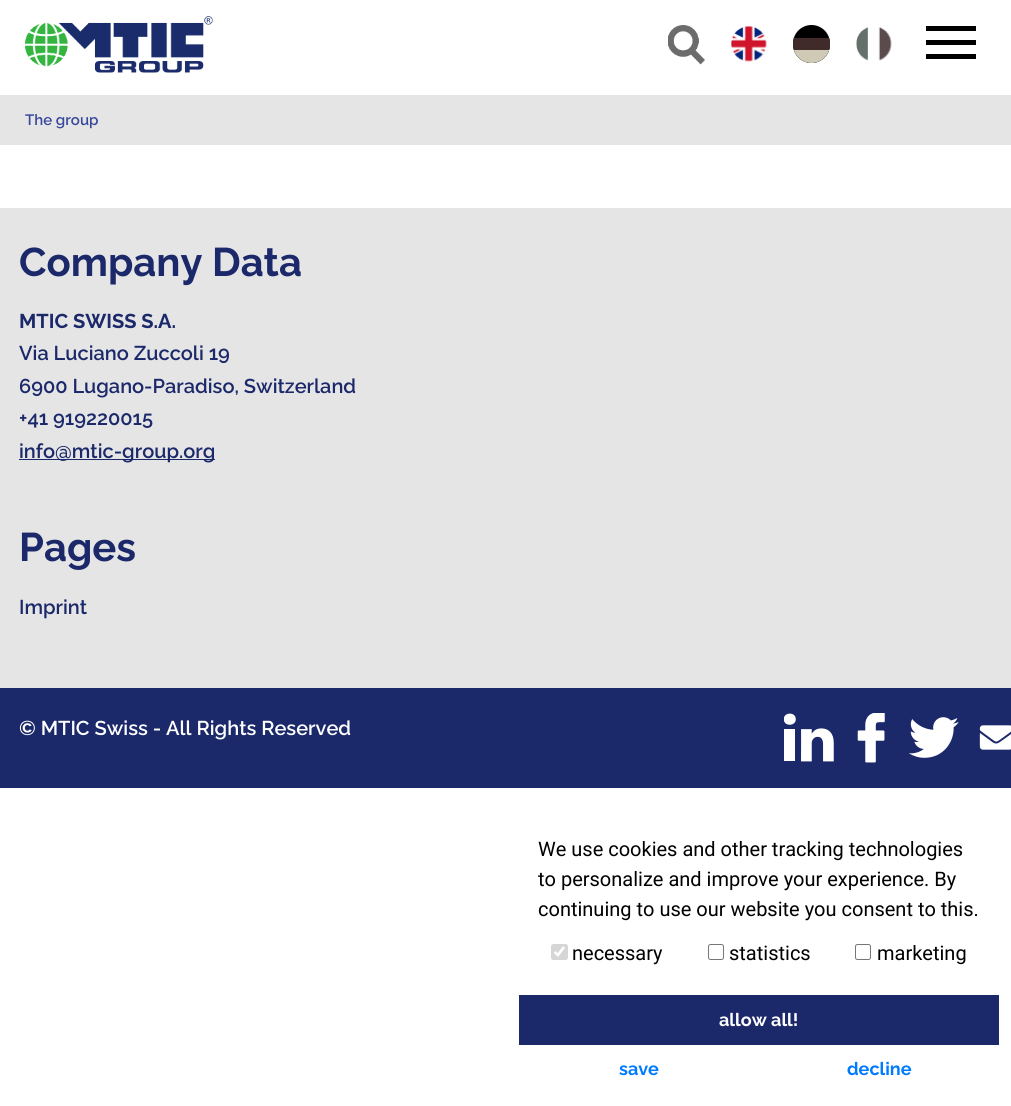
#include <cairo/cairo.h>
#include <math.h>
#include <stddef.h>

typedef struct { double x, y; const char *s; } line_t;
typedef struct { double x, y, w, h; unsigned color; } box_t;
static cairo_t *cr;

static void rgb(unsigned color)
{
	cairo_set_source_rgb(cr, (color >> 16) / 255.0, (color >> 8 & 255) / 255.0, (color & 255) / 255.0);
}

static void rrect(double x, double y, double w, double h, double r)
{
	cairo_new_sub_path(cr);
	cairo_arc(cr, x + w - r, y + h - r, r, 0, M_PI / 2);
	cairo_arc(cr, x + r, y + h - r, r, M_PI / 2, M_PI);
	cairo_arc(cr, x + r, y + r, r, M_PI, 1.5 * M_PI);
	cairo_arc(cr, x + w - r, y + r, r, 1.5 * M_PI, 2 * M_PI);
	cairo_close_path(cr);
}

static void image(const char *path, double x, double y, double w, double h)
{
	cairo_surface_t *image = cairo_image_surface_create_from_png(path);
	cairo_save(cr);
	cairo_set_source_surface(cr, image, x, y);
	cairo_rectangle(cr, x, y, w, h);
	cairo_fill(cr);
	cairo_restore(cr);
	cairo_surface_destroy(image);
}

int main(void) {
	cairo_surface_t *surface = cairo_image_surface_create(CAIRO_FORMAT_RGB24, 1011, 1106);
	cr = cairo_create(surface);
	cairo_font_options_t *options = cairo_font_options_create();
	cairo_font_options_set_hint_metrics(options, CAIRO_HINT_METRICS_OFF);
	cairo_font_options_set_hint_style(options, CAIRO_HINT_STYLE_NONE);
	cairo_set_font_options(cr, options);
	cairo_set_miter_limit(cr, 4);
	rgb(0xffffff);
	cairo_paint(cr);
	image("img/1.png", 25, 16, 188, 57);
	image("img/2.png", 668, 25, 37, 40);
	image("img/3.png", 731, 26, 36, 36);
	rgb(0x000000);
	rrect(793, 25, 37, 38, 18.5);
	cairo_fill(cr);
	cairo_save(cr);
	rrect(793, 25, 37, 38, 18.5);
	cairo_clip(cr);
	rgb(0x402a2a);
	cairo_new_path(cr);
	cairo_move_to(cr, 793, 38);
	cairo_line_to(cr, 830, 38);
	cairo_line_to(cr, 830, 44.5);
	cairo_curve_to(cr, 830, 54.5, 821.5, 63, 811.5, 63);
	cairo_curve_to(cr, 801.5, 63, 793, 54.5, 793, 44.5);
	cairo_close_path(cr);
	cairo_fill(cr);
	rgb(0xcfcab5);
	cairo_rectangle(cr, 793, 50, 37, 13);
	cairo_fill(cr);
	cairo_restore(cr);
	image("img/4.png", 856, 27, 36, 34);
	{
		static const box_t items[] = {
			{926, 40, 50, 5, 0x000000},
			{926, 26, 50, 5, 0x000000},
			{926, 54, 50, 5, 0x000000},
			{0, 95, 1011, 50, 0xe5e5e5},
			{0, 208, 1011, 480, 0xe5e5e5},
			{19, 459, 196, 1, 0x1b286a},
			{0, 688, 1011, 100, 0x1b286a},
		};
		for (size_t i = 0; i < sizeof items / sizeof *items; i++) {
			rgb(items[i].color);
			cairo_rectangle(cr, items[i].x, items[i].y, items[i].w, items[i].h);
			cairo_fill(cr);
		}
	}
	image("img/5.png", 784, 713, 50, 49);
	image("img/6.png", 857, 713, 28, 50);
	image("img/7.png", 909, 717, 50, 41);
	image("img/8.png", 979, 725, 32, 25);
	rgb(0xd6d6d6);
	rrect(551, 944, 17, 16, 2.5);
	cairo_fill(cr);
	cairo_new_path(cr);
	cairo_move_to(cr, 554.5, 952);
	cairo_line_to(cr, 558, 955);
	cairo_line_to(cr, 564, 947);
	rgb(0xffffff);
	cairo_set_line_width(cr, 2.6);
	cairo_stroke(cr);
	rrect(708.5, 944.5, 15, 15, 2);
	rgb(0x767676);
	cairo_set_line_width(cr, 1);
	cairo_stroke(cr);
	rrect(855.5, 944.5, 15, 15, 2);
	cairo_stroke(cr);
	rgb(0x1b286a);
	cairo_rectangle(cr, 519, 995, 480, 50);
	cairo_fill(cr);
	cairo_select_font_face(cr, "Raleway SemiBold", CAIRO_FONT_SLANT_NORMAL, CAIRO_FONT_WEIGHT_NORMAL);
	cairo_set_font_size(cr, 15);
	rgb(0x38489b);
	cairo_move_to(cr, 25, 125);
	cairo_show_text(cr, "The group");
	cairo_select_font_face(cr, "Raleway", CAIRO_FONT_SLANT_NORMAL, CAIRO_FONT_WEIGHT_BOLD);
	cairo_set_font_size(cr, 40);
	rgb(0x1b286a);
	cairo_move_to(cr, 19, 276);
	cairo_show_text(cr, "Company Data");
	cairo_set_font_size(cr, 20);
	cairo_move_to(cr, 19, 328);
	cairo_show_text(cr, "MTIC SWISS S.A.");
	cairo_select_font_face(cr, "Raleway SemiBold", CAIRO_FONT_SLANT_NORMAL, CAIRO_FONT_WEIGHT_NORMAL);
	{
		static const line_t items[] = {
			{19, 360, "Via Luciano Zuccoli 19"},
			{19, 393, "6900 Lugano-Paradiso, Switzerland"},
			{19, 425, "+41 919220015"},
			{19, 458, "info@mtic-group.org"},
		};
		for (size_t i = 0; i < sizeof items / sizeof *items; i++) {
			cairo_move_to(cr, items[i].x, items[i].y);
			cairo_show_text(cr, items[i].s);
		}
	}
	cairo_select_font_face(cr, "Raleway", CAIRO_FONT_SLANT_NORMAL, CAIRO_FONT_WEIGHT_BOLD);
	cairo_set_font_size(cr, 40);
	cairo_move_to(cr, 19, 561);
	cairo_show_text(cr, "Pages");
	cairo_select_font_face(cr, "Raleway SemiBold", CAIRO_FONT_SLANT_NORMAL, CAIRO_FONT_WEIGHT_NORMAL);
	cairo_set_font_size(cr, 20);
	cairo_move_to(cr, 19, 614);
	cairo_show_text(cr, "Imprint");
	rgb(0xffffff);
	cairo_move_to(cr, 19, 735);
	cairo_show_text(cr, "© MTIC Swiss - All Rights Reserved");
	cairo_select_font_face(cr, "Roboto", CAIRO_FONT_SLANT_NORMAL, CAIRO_FONT_WEIGHT_NORMAL);
	rgb(0x000000);
	{
		static const line_t items[] = {
			{538, 856, "We use cookies and other tracking technologies"},
			{538, 886, "to personalize and improve your experience. By"},
			{538, 916, "continuing to use our website you consent to this."},
			{572, 960, "necessary"},
			{729, 960, "statistics"},
			{877, 960, "marketing"},
		};
		for (size_t i = 0; i < sizeof items / sizeof *items; i++) {
			cairo_move_to(cr, items[i].x, items[i].y);
			cairo_show_text(cr, items[i].s);
		}
	}
	cairo_select_font_face(cr, "Raleway", CAIRO_FONT_SLANT_NORMAL, CAIRO_FONT_WEIGHT_BOLD);
	cairo_set_font_size(cr, 18);
	rgb(0xffffff);
	cairo_move_to(cr, 719, 1026);
	cairo_show_text(cr, "allow all!");
	rgb(0x007bff);
	cairo_move_to(cr, 619, 1075);
	cairo_show_text(cr, "save");
	cairo_move_to(cr, 847, 1075);
	cairo_show_text(cr, "decline");
	cairo_surface_write_to_png(surface, "page.png");
	cairo_font_options_destroy(options);
	cairo_destroy(cr);
	cairo_surface_destroy(surface);
	return 0;
}
